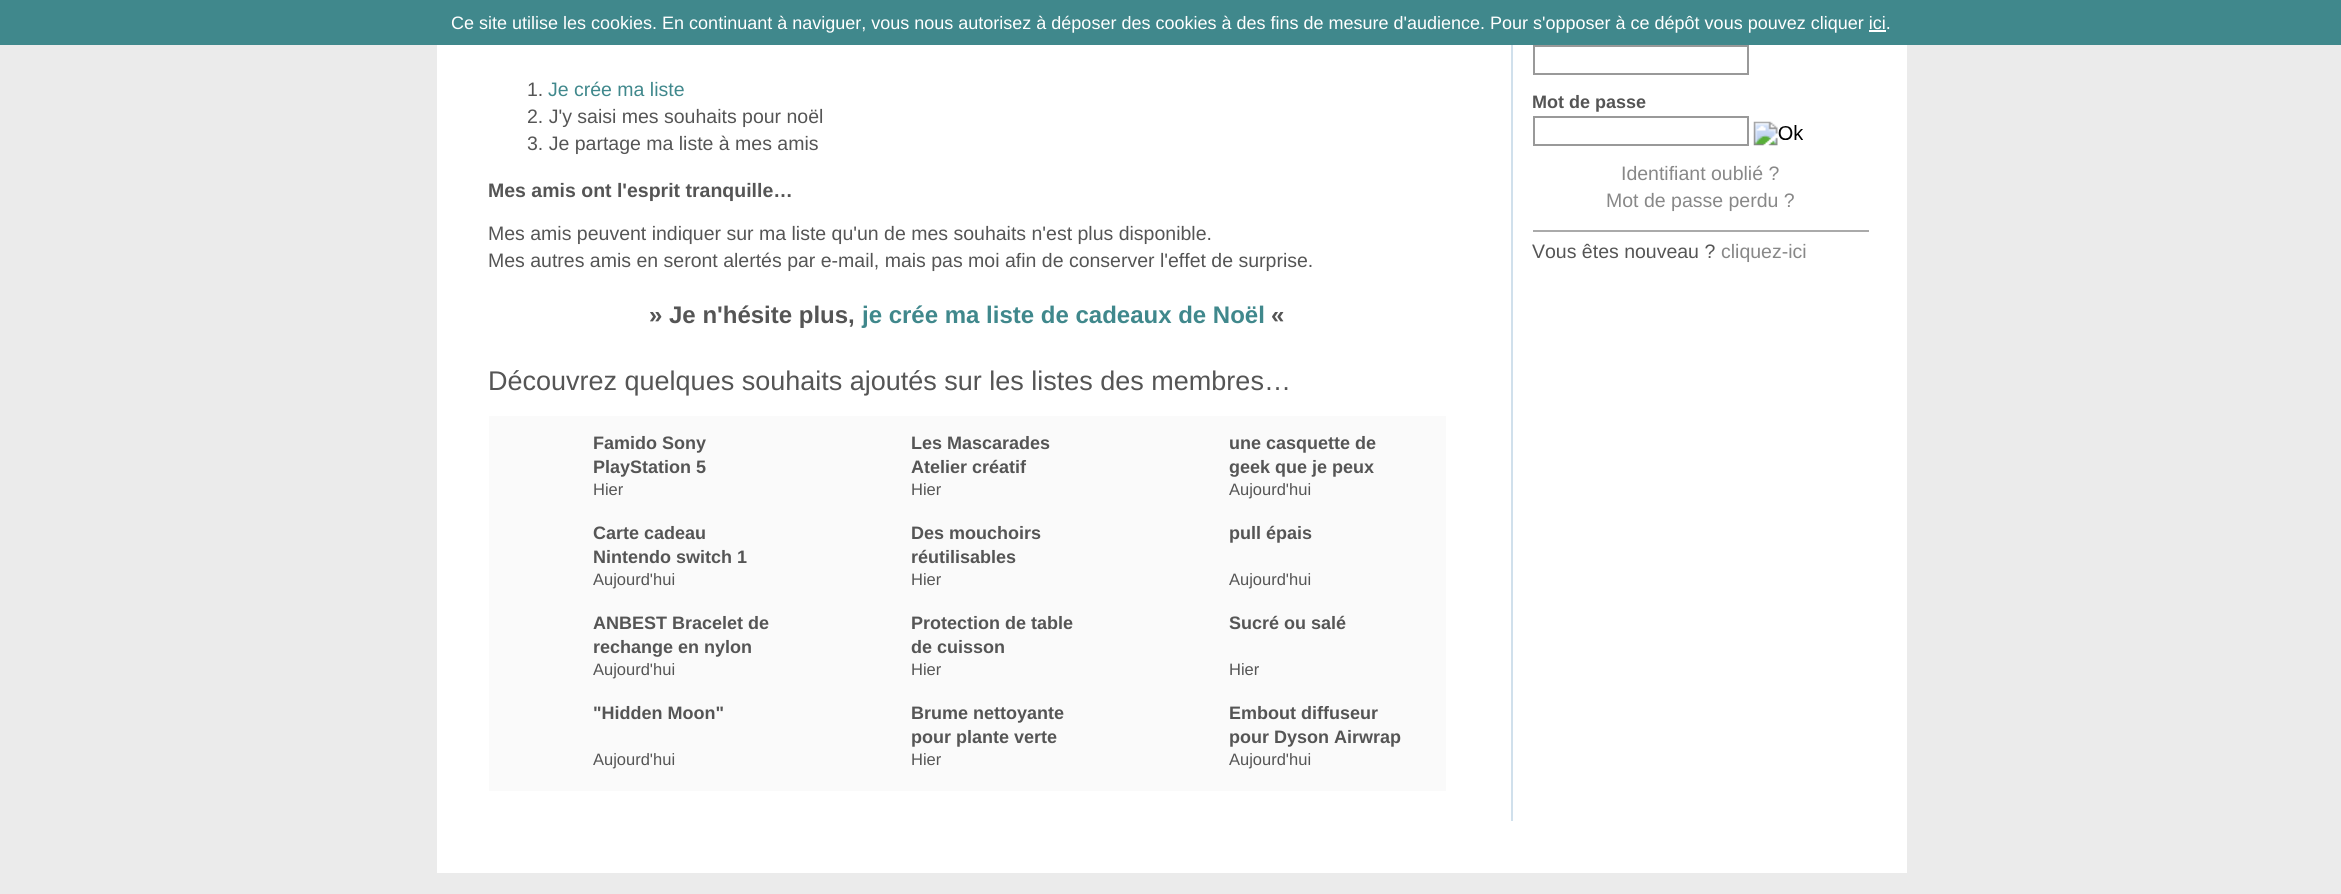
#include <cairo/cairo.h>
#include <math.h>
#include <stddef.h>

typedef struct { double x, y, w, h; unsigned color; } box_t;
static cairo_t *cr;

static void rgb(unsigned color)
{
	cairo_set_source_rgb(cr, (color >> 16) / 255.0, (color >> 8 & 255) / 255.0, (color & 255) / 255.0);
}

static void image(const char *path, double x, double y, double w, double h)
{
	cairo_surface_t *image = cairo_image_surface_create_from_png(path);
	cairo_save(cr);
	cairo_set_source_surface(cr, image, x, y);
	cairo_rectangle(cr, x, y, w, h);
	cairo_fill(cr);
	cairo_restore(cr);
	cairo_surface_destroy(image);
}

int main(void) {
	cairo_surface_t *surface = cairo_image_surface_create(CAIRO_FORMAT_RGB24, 2341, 894);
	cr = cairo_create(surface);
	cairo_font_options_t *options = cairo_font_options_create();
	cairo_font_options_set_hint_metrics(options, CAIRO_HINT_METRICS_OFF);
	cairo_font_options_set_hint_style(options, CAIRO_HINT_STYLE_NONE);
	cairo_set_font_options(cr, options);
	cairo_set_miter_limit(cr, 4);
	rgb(0xebebeb);
	cairo_paint(cr);
	{
		static const box_t items[] = {
			{0, 0, 2341, 45, 0x40888c},
			{1869, 30, 17, 2, 0xffffff},
			{437, 45, 1470, 828, 0xffffff},
			{1511, 45, 2, 776, 0xd0e0ec},
			{489, 416, 957, 375, 0xfafafa},
		};
		for (size_t i = 0; i < sizeof items / sizeof *items; i++) {
			rgb(items[i].color);
			cairo_rectangle(cr, items[i].x, items[i].y, items[i].w, items[i].h);
			cairo_fill(cr);
		}
	}
	cairo_rectangle(cr, 1534, 46, 214, 28);
	rgb(0x999999);
	cairo_stroke(cr);
	cairo_rectangle(cr, 1534, 117, 214, 28);
	cairo_stroke(cr);
	image("img/1.png", 1753, 121, 50, 25);
	rgb(0xaaaaaa);
	cairo_rectangle(cr, 1533, 230, 336, 2);
	cairo_fill(cr);
	cairo_select_font_face(cr, "Liberation Sans", CAIRO_FONT_SLANT_NORMAL, CAIRO_FONT_WEIGHT_NORMAL);
	cairo_set_font_size(cr, 18);
	rgb(0xffffff);
	cairo_move_to(cr, 451, 29);
	cairo_show_text(cr, "Ce site utilise les cookies. En continuant à naviguer, vous nous autorisez à déposer des cookies à des fins de mesure d'audience. Pour s'opposer à ce dépôt vous pouvez cliquer ici.");
	cairo_set_font_size(cr, 19.5);
	rgb(0x555555);
	cairo_move_to(cr, 527, 96);
	cairo_show_text(cr, "1.");
	rgb(0x40888c);
	cairo_move_to(cr, 548, 96);
	cairo_show_text(cr, "Je crée ma liste");
	rgb(0x555555);
	cairo_move_to(cr, 527, 123);
	cairo_show_text(cr, "2. J'y saisi mes souhaits pour noël");
	cairo_move_to(cr, 527, 150);
	cairo_show_text(cr, "3. Je partage ma liste à mes amis");
	cairo_select_font_face(cr, "Liberation Sans", CAIRO_FONT_SLANT_NORMAL, CAIRO_FONT_WEIGHT_BOLD);
	cairo_move_to(cr, 488, 197);
	cairo_show_text(cr, "Mes amis ont l'esprit tranquille…");
	cairo_select_font_face(cr, "Liberation Sans", CAIRO_FONT_SLANT_NORMAL, CAIRO_FONT_WEIGHT_NORMAL);
	cairo_move_to(cr, 488, 240);
	cairo_show_text(cr, "Mes amis peuvent indiquer sur ma liste qu'un de mes souhaits n'est plus disponible.");
	cairo_move_to(cr, 488, 267);
	cairo_show_text(cr, "Mes autres amis en seront alertés par e-mail, mais pas moi afin de conserver l'effet de surprise.");
	cairo_select_font_face(cr, "Liberation Sans", CAIRO_FONT_SLANT_NORMAL, CAIRO_FONT_WEIGHT_BOLD);
	cairo_set_font_size(cr, 24);
	cairo_move_to(cr, 649, 323);
	cairo_show_text(cr, "» Je n'hésite plus,");
	rgb(0x40888c);
	cairo_move_to(cr, 862, 323);
	cairo_show_text(cr, "je crée ma liste de cadeaux de Noël");
	rgb(0x555555);
	cairo_move_to(cr, 1271, 323);
	cairo_show_text(cr, "«");
	cairo_select_font_face(cr, "Liberation Sans", CAIRO_FONT_SLANT_NORMAL, CAIRO_FONT_WEIGHT_NORMAL);
	cairo_set_font_size(cr, 27);
	cairo_move_to(cr, 488, 390);
	cairo_show_text(cr, "Découvrez quelques souhaits ajoutés sur les listes des membres…");
	cairo_select_font_face(cr, "Liberation Sans", CAIRO_FONT_SLANT_NORMAL, CAIRO_FONT_WEIGHT_BOLD);
	cairo_set_font_size(cr, 18);
	cairo_move_to(cr, 593, 449);
	cairo_show_text(cr, "Famido Sony");
	cairo_move_to(cr, 593, 473);
	cairo_show_text(cr, "PlayStation 5");
	cairo_select_font_face(cr, "Liberation Sans", CAIRO_FONT_SLANT_NORMAL, CAIRO_FONT_WEIGHT_NORMAL);
	cairo_set_font_size(cr, 16.5);
	cairo_move_to(cr, 593, 495);
	cairo_show_text(cr, "Hier");
	cairo_select_font_face(cr, "Liberation Sans", CAIRO_FONT_SLANT_NORMAL, CAIRO_FONT_WEIGHT_BOLD);
	cairo_set_font_size(cr, 18);
	cairo_move_to(cr, 911, 449);
	cairo_show_text(cr, "Les Mascarades");
	cairo_move_to(cr, 911, 473);
	cairo_show_text(cr, "Atelier créatif");
	cairo_select_font_face(cr, "Liberation Sans", CAIRO_FONT_SLANT_NORMAL, CAIRO_FONT_WEIGHT_NORMAL);
	cairo_set_font_size(cr, 16.5);
	cairo_move_to(cr, 911, 495);
	cairo_show_text(cr, "Hier");
	cairo_select_font_face(cr, "Liberation Sans", CAIRO_FONT_SLANT_NORMAL, CAIRO_FONT_WEIGHT_BOLD);
	cairo_set_font_size(cr, 18);
	cairo_move_to(cr, 1229, 449);
	cairo_show_text(cr, "une casquette de");
	cairo_move_to(cr, 1229, 473);
	cairo_show_text(cr, "geek que je peux");
	cairo_select_font_face(cr, "Liberation Sans", CAIRO_FONT_SLANT_NORMAL, CAIRO_FONT_WEIGHT_NORMAL);
	cairo_set_font_size(cr, 16.5);
	cairo_move_to(cr, 1229, 495);
	cairo_show_text(cr, "Aujourd'hui");
	cairo_select_font_face(cr, "Liberation Sans", CAIRO_FONT_SLANT_NORMAL, CAIRO_FONT_WEIGHT_BOLD);
	cairo_set_font_size(cr, 18);
	cairo_move_to(cr, 593, 539);
	cairo_show_text(cr, "Carte cadeau");
	cairo_move_to(cr, 593, 563);
	cairo_show_text(cr, "Nintendo switch 1");
	cairo_select_font_face(cr, "Liberation Sans", CAIRO_FONT_SLANT_NORMAL, CAIRO_FONT_WEIGHT_NORMAL);
	cairo_set_font_size(cr, 16.5);
	cairo_move_to(cr, 593, 585);
	cairo_show_text(cr, "Aujourd'hui");
	cairo_select_font_face(cr, "Liberation Sans", CAIRO_FONT_SLANT_NORMAL, CAIRO_FONT_WEIGHT_BOLD);
	cairo_set_font_size(cr, 18);
	cairo_move_to(cr, 911, 539);
	cairo_show_text(cr, "Des mouchoirs");
	cairo_move_to(cr, 911, 563);
	cairo_show_text(cr, "réutilisables");
	cairo_select_font_face(cr, "Liberation Sans", CAIRO_FONT_SLANT_NORMAL, CAIRO_FONT_WEIGHT_NORMAL);
	cairo_set_font_size(cr, 16.5);
	cairo_move_to(cr, 911, 585);
	cairo_show_text(cr, "Hier");
	cairo_select_font_face(cr, "Liberation Sans", CAIRO_FONT_SLANT_NORMAL, CAIRO_FONT_WEIGHT_BOLD);
	cairo_set_font_size(cr, 18);
	cairo_move_to(cr, 1229, 539);
	cairo_show_text(cr, "pull épais");
	cairo_select_font_face(cr, "Liberation Sans", CAIRO_FONT_SLANT_NORMAL, CAIRO_FONT_WEIGHT_NORMAL);
	cairo_set_font_size(cr, 16.5);
	cairo_move_to(cr, 1229, 585);
	cairo_show_text(cr, "Aujourd'hui");
	cairo_select_font_face(cr, "Liberation Sans", CAIRO_FONT_SLANT_NORMAL, CAIRO_FONT_WEIGHT_BOLD);
	cairo_set_font_size(cr, 18);
	cairo_move_to(cr, 593, 629);
	cairo_show_text(cr, "ANBEST Bracelet de");
	cairo_move_to(cr, 593, 653);
	cairo_show_text(cr, "rechange en nylon");
	cairo_select_font_face(cr, "Liberation Sans", CAIRO_FONT_SLANT_NORMAL, CAIRO_FONT_WEIGHT_NORMAL);
	cairo_set_font_size(cr, 16.5);
	cairo_move_to(cr, 593, 675);
	cairo_show_text(cr, "Aujourd'hui");
	cairo_select_font_face(cr, "Liberation Sans", CAIRO_FONT_SLANT_NORMAL, CAIRO_FONT_WEIGHT_BOLD);
	cairo_set_font_size(cr, 18);
	cairo_move_to(cr, 911, 629);
	cairo_show_text(cr, "Protection de table");
	cairo_move_to(cr, 911, 653);
	cairo_show_text(cr, "de cuisson");
	cairo_select_font_face(cr, "Liberation Sans", CAIRO_FONT_SLANT_NORMAL, CAIRO_FONT_WEIGHT_NORMAL);
	cairo_set_font_size(cr, 16.5);
	cairo_move_to(cr, 911, 675);
	cairo_show_text(cr, "Hier");
	cairo_select_font_face(cr, "Liberation Sans", CAIRO_FONT_SLANT_NORMAL, CAIRO_FONT_WEIGHT_BOLD);
	cairo_set_font_size(cr, 18);
	cairo_move_to(cr, 1229, 629);
	cairo_show_text(cr, "Sucré ou salé");
	cairo_select_font_face(cr, "Liberation Sans", CAIRO_FONT_SLANT_NORMAL, CAIRO_FONT_WEIGHT_NORMAL);
	cairo_set_font_size(cr, 16.5);
	cairo_move_to(cr, 1229, 675);
	cairo_show_text(cr, "Hier");
	cairo_select_font_face(cr, "Liberation Sans", CAIRO_FONT_SLANT_NORMAL, CAIRO_FONT_WEIGHT_BOLD);
	cairo_set_font_size(cr, 18);
	cairo_move_to(cr, 593, 719);
	cairo_show_text(cr, "\"Hidden Moon\"");
	cairo_select_font_face(cr, "Liberation Sans", CAIRO_FONT_SLANT_NORMAL, CAIRO_FONT_WEIGHT_NORMAL);
	cairo_set_font_size(cr, 16.5);
	cairo_move_to(cr, 593, 765);
	cairo_show_text(cr, "Aujourd'hui");
	cairo_select_font_face(cr, "Liberation Sans", CAIRO_FONT_SLANT_NORMAL, CAIRO_FONT_WEIGHT_BOLD);
	cairo_set_font_size(cr, 18);
	cairo_move_to(cr, 911, 719);
	cairo_show_text(cr, "Brume nettoyante");
	cairo_move_to(cr, 911, 743);
	cairo_show_text(cr, "pour plante verte");
	cairo_select_font_face(cr, "Liberation Sans", CAIRO_FONT_SLANT_NORMAL, CAIRO_FONT_WEIGHT_NORMAL);
	cairo_set_font_size(cr, 16.5);
	cairo_move_to(cr, 911, 765);
	cairo_show_text(cr, "Hier");
	cairo_select_font_face(cr, "Liberation Sans", CAIRO_FONT_SLANT_NORMAL, CAIRO_FONT_WEIGHT_BOLD);
	cairo_set_font_size(cr, 18);
	cairo_move_to(cr, 1229, 719);
	cairo_show_text(cr, "Embout diffuseur");
	cairo_move_to(cr, 1229, 743);
	cairo_show_text(cr, "pour Dyson Airwrap");
	cairo_select_font_face(cr, "Liberation Sans", CAIRO_FONT_SLANT_NORMAL, CAIRO_FONT_WEIGHT_NORMAL);
	cairo_set_font_size(cr, 16.5);
	cairo_move_to(cr, 1229, 765);
	cairo_show_text(cr, "Aujourd'hui");
	cairo_select_font_face(cr, "Liberation Sans", CAIRO_FONT_SLANT_NORMAL, CAIRO_FONT_WEIGHT_BOLD);
	cairo_set_font_size(cr, 18);
	cairo_move_to(cr, 1532, 108);
	cairo_show_text(cr, "Mot de passe");
	cairo_select_font_face(cr, "Liberation Sans", CAIRO_FONT_SLANT_NORMAL, CAIRO_FONT_WEIGHT_NORMAL);
	cairo_set_font_size(cr, 19.5);
	rgb(0x888888);
	cairo_move_to(cr, 1621, 180);
	cairo_show_text(cr, "Identifiant oublié ?");
	cairo_move_to(cr, 1606, 207);
	cairo_show_text(cr, "Mot de passe perdu ?");
	rgb(0x555555);
	cairo_move_to(cr, 1532, 258);
	cairo_show_text(cr, "Vous êtes nouveau ?");
	rgb(0x888888);
	cairo_move_to(cr, 1721, 258);
	cairo_show_text(cr, "cliquez-ici");
	cairo_surface_write_to_png(surface, "page.png");
	cairo_font_options_destroy(options);
	cairo_destroy(cr);
	cairo_surface_destroy(surface);
	return 0;
}
